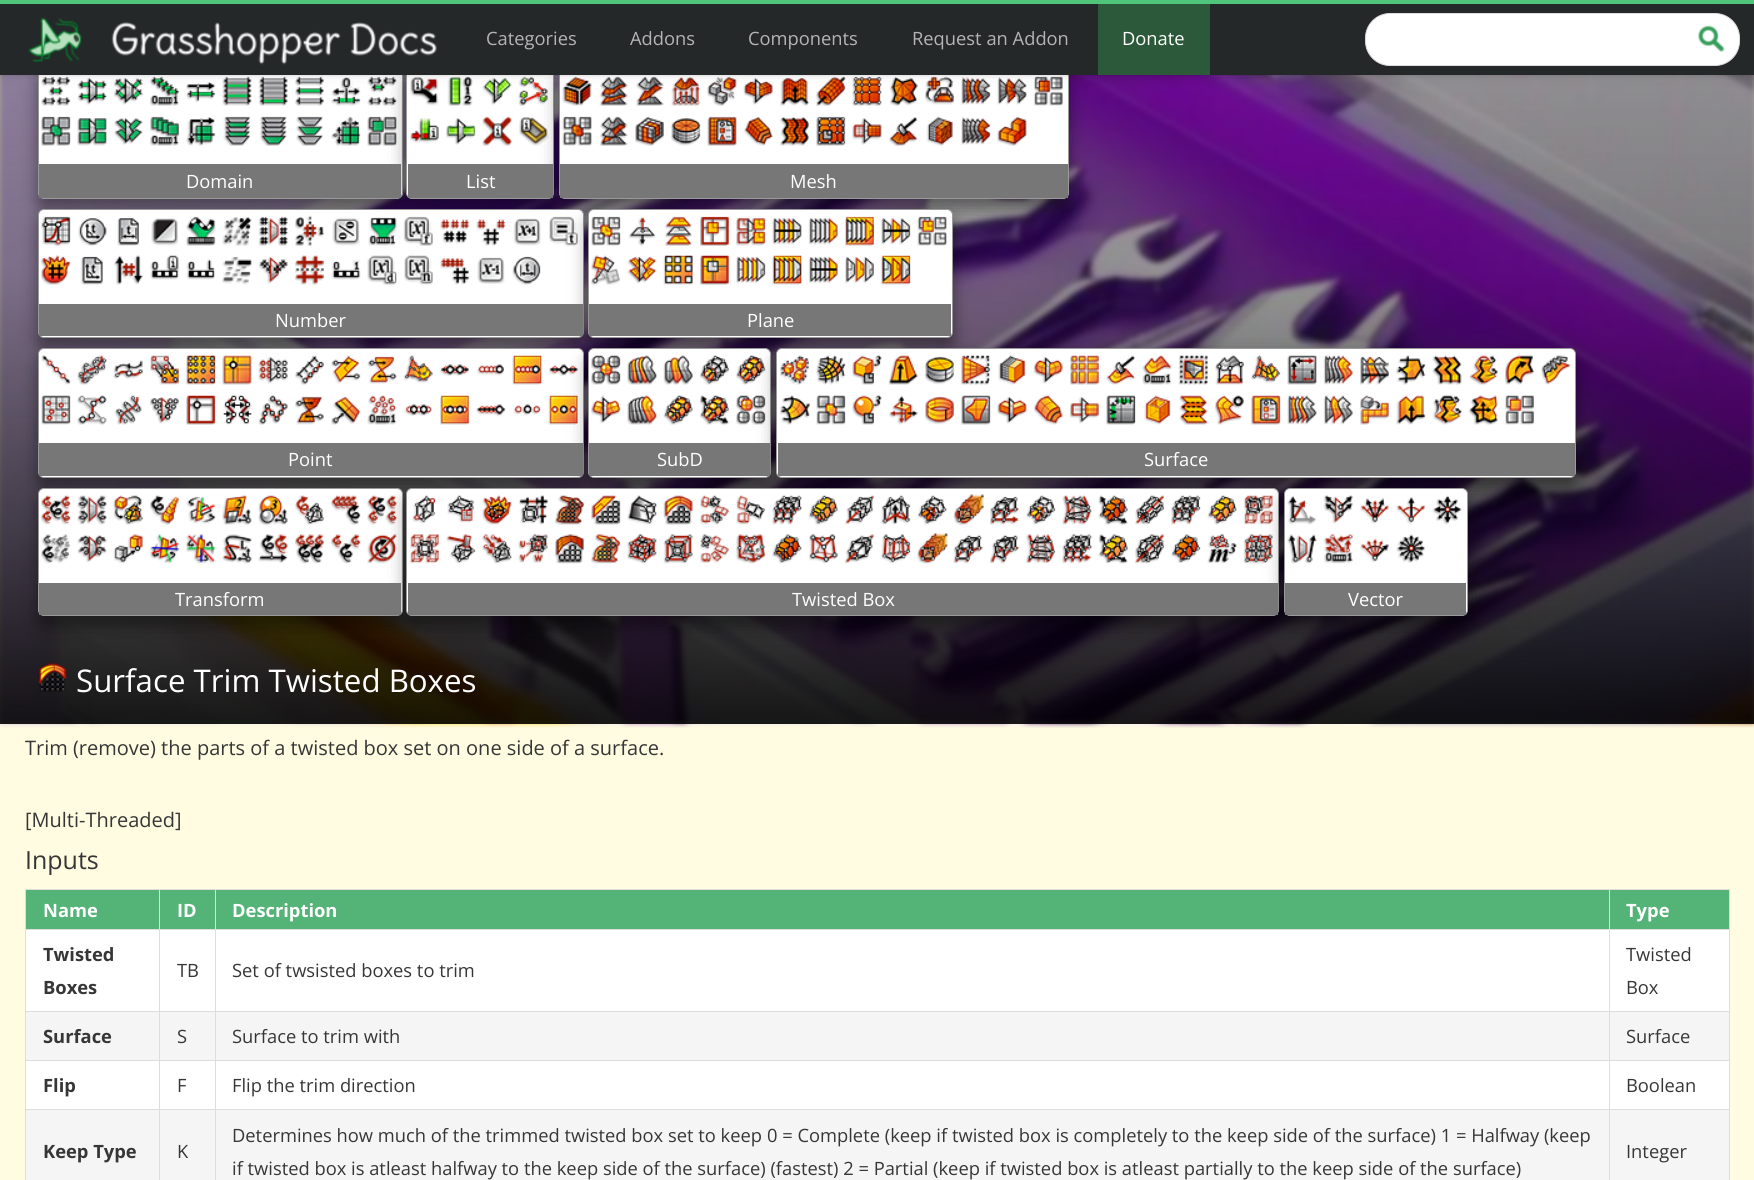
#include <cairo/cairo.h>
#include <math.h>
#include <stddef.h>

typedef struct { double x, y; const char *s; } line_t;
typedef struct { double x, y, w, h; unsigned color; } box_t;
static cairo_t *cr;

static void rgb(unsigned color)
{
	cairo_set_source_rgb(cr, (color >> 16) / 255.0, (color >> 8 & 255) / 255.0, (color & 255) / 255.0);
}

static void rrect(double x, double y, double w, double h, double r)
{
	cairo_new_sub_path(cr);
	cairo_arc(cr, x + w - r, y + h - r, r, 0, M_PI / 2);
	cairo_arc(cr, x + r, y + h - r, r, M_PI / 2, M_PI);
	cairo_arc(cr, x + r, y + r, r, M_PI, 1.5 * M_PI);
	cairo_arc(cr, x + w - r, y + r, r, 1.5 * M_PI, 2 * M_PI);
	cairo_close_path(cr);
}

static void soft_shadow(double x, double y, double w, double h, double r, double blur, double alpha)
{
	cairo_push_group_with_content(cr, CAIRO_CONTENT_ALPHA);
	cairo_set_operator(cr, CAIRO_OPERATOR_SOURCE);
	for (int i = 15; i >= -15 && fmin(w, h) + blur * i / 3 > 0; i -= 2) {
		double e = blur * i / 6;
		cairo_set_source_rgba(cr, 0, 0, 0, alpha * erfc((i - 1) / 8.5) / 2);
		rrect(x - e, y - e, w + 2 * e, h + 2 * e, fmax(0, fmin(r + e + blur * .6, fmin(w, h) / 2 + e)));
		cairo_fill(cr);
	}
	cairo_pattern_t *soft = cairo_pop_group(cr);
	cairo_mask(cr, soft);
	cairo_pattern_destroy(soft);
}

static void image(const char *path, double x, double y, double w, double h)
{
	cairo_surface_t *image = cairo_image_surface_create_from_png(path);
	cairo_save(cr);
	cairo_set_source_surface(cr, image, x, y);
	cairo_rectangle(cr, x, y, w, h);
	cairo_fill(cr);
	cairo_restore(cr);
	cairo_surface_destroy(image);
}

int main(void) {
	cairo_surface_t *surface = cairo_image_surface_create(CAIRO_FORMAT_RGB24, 1754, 1180);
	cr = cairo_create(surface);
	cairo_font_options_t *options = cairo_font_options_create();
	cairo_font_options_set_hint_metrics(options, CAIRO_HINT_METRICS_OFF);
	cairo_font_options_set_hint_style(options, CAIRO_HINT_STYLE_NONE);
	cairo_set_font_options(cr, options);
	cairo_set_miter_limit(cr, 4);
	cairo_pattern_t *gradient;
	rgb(0xfffce1);
	cairo_paint(cr);
	image("img/4.png", 0, 75, 1754, 653);
	gradient = cairo_pattern_create_linear(878, -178, 878, 724);
	cairo_pattern_add_color_stop_rgba(gradient, 0, 0, 0, 0, 0.2);
	cairo_pattern_add_color_stop_rgba(gradient, 0.5, 0, 0, 0, 0.4);
	cairo_pattern_add_color_stop_rgba(gradient, 1, 0, 0, 0, 0.9);
	cairo_set_source(cr, gradient);
	cairo_pattern_destroy(gradient);
	cairo_rectangle(cr, 0, 75, 1754, 649);
	cairo_fill(cr);
	rgb(0x000000);
	soft_shadow(38, -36, 183, 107, 6, 10, 0.3);
	soft_shadow(225, -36, 1054, 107, 6, 10, 0.3);
	soft_shadow(38, 76, 365, 130, 6, 6, 0.19);
	soft_shadow(38, 81, 365, 130, 6, 10, 0.3);
	rgb(0xffffff);
	rrect(38.5, 69.5, 364, 129, 5.5);
	cairo_fill_preserve(cr);
	rgb(0x999999);
	cairo_set_line_width(cr, 1);
	cairo_stroke(cr);
	image("img/5.png", 41, 76, 30, 30);
	image("img/7.png", 77, 78, 30, 27);
	image("img/9.png", 113, 78, 30, 27);
	image("img/11.png", 150, 76, 29, 30);
	image("img/13.png", 186, 82, 30, 21);
	image("img/15.png", 222, 76, 30, 30);
	image("img/17.png", 258, 76, 30, 30);
	image("img/19.png", 295, 76, 29, 30);
	image("img/21.png", 331, 77, 30, 29);
	image("img/23.png", 367, 76, 30, 30);
	image("img/24.png", 367, 116, 30, 30);
	rgb(0x000000);
	soft_shadow(406, 76, 148, 130, 6, 6, 0.19);
	soft_shadow(406, 81, 148, 130, 6, 10, 0.3);
	rgb(0xffffff);
	rrect(406.5, 69.5, 147, 129, 5.5);
	cairo_fill_preserve(cr);
	rgb(0x999999);
	cairo_stroke(cr);
	image("img/25.png", 410, 77, 29, 29);
	image("img/27.png", 447, 76, 26, 30);
	image("img/29.png", 482, 78, 30, 27);
	image("img/31.png", 518, 76, 30, 30);
	image("img/32.png", 519, 117, 30, 29);
	rgb(0x000000);
	soft_shadow(559, 76, 510, 130, 6, 6, 0.19);
	soft_shadow(559, 81, 510, 130, 6, 10, 0.3);
	rgb(0xffffff);
	rrect(559.5, 69.5, 509, 129, 5.5);
	cairo_fill_preserve(cr);
	rgb(0x999999);
	cairo_stroke(cr);
	image("img/33.png", 562, 76, 30, 30);
	image("img/35.png", 599, 76, 29, 30);
	image("img/37.png", 636, 76, 28, 30);
	image("img/39.png", 671, 77, 30, 29);
	image("img/41.png", 707, 76, 30, 30);
	image("img/43.png", 743, 78, 30, 27);
	image("img/45.png", 780, 78, 29, 28);
	image("img/47.png", 816, 76, 30, 30);
	image("img/49.png", 852, 76, 30, 30);
	image("img/51.png", 889, 77, 29, 29);
	image("img/53.png", 925, 76, 29, 29);
	image("img/55.png", 961, 77, 30, 28);
	image("img/57.png", 997, 77, 30, 28);
	image("img/59.png", 1033, 76, 30, 30);
	rgb(0x000000);
	soft_shadow(0, 3, 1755, 75, 0, 5, 0.05);
	soft_shadow(0, 1, 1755, 75, 0, 2.5, 0.05);
	soft_shadow(0, 1, 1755, 75, 0, 1, 0.05);
	rgb(0x242829);
	cairo_rectangle(cr, 0, 4, 1754, 71);
	cairo_fill(cr);
	rgb(0x4fc67b);
	cairo_rectangle(cr, 0, 0, 1754, 4);
	cairo_fill(cr);
	image("img/1.png", 28, 17, 54, 45);
	image("img/2.png", 111, 22, 326, 43);
	rgb(0x2d593b);
	cairo_rectangle(cr, 1098, 4, 112, 71);
	cairo_fill(cr);
	rgb(0xffffff);
	rrect(1365.5, 13.5, 374, 52, 24.5);
	cairo_fill_preserve(cr);
	rgb(0xdddddd);
	cairo_stroke(cr);
	image("img/3.png", 1698, 25, 27, 27);
	image("img/6.png", 41, 116, 30, 30);
	image("img/8.png", 77, 118, 30, 28);
	image("img/10.png", 114, 118, 29, 27);
	image("img/12.png", 150, 116, 29, 30);
	image("img/14.png", 186, 117, 30, 29);
	image("img/16.png", 223, 116, 28, 30);
	image("img/18.png", 259, 116, 28, 30);
	image("img/20.png", 296, 116, 27, 30);
	image("img/22.png", 331, 116, 30, 30);
	rgb(0x000000);
	soft_shadow(38, 216, 546, 129, 6, 6, 0.19);
	soft_shadow(38, 221, 546, 129, 6, 10, 0.3);
	rgb(0x777777);
	cairo_rectangle(cr, 39, 164, 362, 34);
	cairo_fill(cr);
	image("img/26.png", 410, 118, 29, 25);
	image("img/28.png", 446, 118, 30, 27);
	image("img/30.png", 482, 116, 30, 30);
	cairo_rectangle(cr, 408, 164, 145, 34);
	cairo_fill(cr);
	image("img/34.png", 562, 116, 30, 30);
	image("img/36.png", 599, 116, 29, 30);
	image("img/38.png", 635, 116, 29, 30);
	image("img/40.png", 671, 118, 30, 28);
	image("img/42.png", 707, 116, 30, 30);
	image("img/44.png", 744, 116, 29, 30);
	image("img/46.png", 780, 117, 29, 29);
	image("img/48.png", 816, 116, 30, 30);
	image("img/50.png", 852, 118, 30, 27);
	image("img/52.png", 889, 117, 29, 29);
	image("img/54.png", 926, 116, 27, 30);
	image("img/56.png", 961, 117, 30, 28);
	image("img/58.png", 997, 116, 30, 30);
	rgb(0xffffff);
	rrect(38.5, 209.5, 545, 128, 5.5);
	cairo_fill_preserve(cr);
	rgb(0x999999);
	cairo_stroke(cr);
	image("img/88.png", 549, 216, 29, 30);
	rgb(0x000000);
	soft_shadow(588, 216, 365, 129, 6, 6, 0.19);
	soft_shadow(588, 221, 365, 129, 6, 10, 0.3);
	rgb(0x777777);
	cairo_rectangle(cr, 560, 164, 508, 34);
	cairo_fill(cr);
	image("img/60.png", 41, 216, 30, 30);
	image("img/61.png", 41, 255, 30, 30);
	image("img/62.png", 78, 218, 29, 28);
	image("img/63.png", 80, 256, 23, 29);
	image("img/64.png", 117, 218, 22, 28);
	image("img/65.png", 114, 255, 29, 30);
	image("img/66.png", 151, 218, 28, 28);
	image("img/67.png", 150, 255, 30, 25);
	image("img/68.png", 186, 216, 30, 30);
	image("img/69.png", 186, 259, 30, 21);
	image("img/70.png", 222, 217, 30, 29);
	image("img/71.png", 222, 256, 30, 29);
	image("img/72.png", 258, 216, 30, 30);
	image("img/73.png", 258, 256, 30, 28);
	image("img/74.png", 295, 215, 29, 31);
	image("img/75.png", 295, 255, 29, 30);
	image("img/76.png", 332, 218, 28, 28);
	image("img/77.png", 331, 259, 30, 21);
	image("img/78.png", 368, 217, 29, 29);
	image("img/79.png", 367, 255, 30, 30);
	image("img/80.png", 403, 216, 30, 30);
	image("img/81.png", 404, 255, 29, 30);
	image("img/82.png", 440, 219, 29, 25);
	image("img/83.png", 440, 258, 29, 27);
	image("img/84.png", 476, 219, 30, 27);
	image("img/85.png", 477, 257, 28, 27);
	image("img/86.png", 513, 218, 28, 28);
	image("img/87.png", 512, 256, 29, 29);
	rgb(0xffffff);
	rrect(588.5, 209.5, 364, 128, 5.5);
	cairo_fill_preserve(cr);
	rgb(0x999999);
	cairo_stroke(cr);
	rgb(0x000000);
	soft_shadow(38, 360, 546, 130, 6, 10, 0.3);
	soft_shadow(38, 355, 546, 130, 6, 6, 0.19);
	rgb(0xffffff);
	rrect(38.5, 348.5, 545, 129, 5.5);
	cairo_fill_preserve(cr);
	rgb(0x999999);
	cairo_stroke(cr);
	image("img/136.png", 549, 364, 29, 12);
	image("img/137.png", 548, 395, 30, 30);
	rgb(0x000000);
	soft_shadow(588, 360, 183, 130, 6, 10, 0.3);
	rgb(0x777777);
	cairo_rectangle(cr, 39, 304, 544, 32);
	cairo_fill(cr);
	image("img/89.png", 591, 216, 30, 30);
	image("img/90.png", 591, 255, 30, 30);
	image("img/91.png", 628, 217, 28, 29);
	image("img/92.png", 627, 256, 30, 28);
	image("img/93.png", 664, 216, 28, 30);
	image("img/94.png", 663, 255, 30, 30);
	image("img/95.png", 700, 216, 29, 30);
	image("img/96.png", 700, 255, 29, 30);
	image("img/97.png", 736, 218, 30, 28);
	image("img/98.png", 736, 256, 30, 28);
	image("img/99.png", 772, 218, 30, 27);
	image("img/100.png", 772, 255, 30, 30);
	image("img/101.png", 808, 218, 30, 27);
	image("img/102.png", 808, 256, 30, 28);
	image("img/103.png", 845, 216, 29, 30);
	image("img/104.png", 845, 256, 29, 28);
	image("img/105.png", 881, 218, 30, 27);
	image("img/106.png", 881, 255, 30, 30);
	image("img/107.png", 917, 216, 30, 30);
	rgb(0x000000);
	soft_shadow(588, 355, 183, 130, 6, 6, 0.19);
	rgb(0xffffff);
	rrect(588.5, 348.5, 182, 129, 5.5);
	cairo_fill_preserve(cr);
	rgb(0x999999);
	cairo_stroke(cr);
	image("img/146.png", 736, 355, 30, 30);
	image("img/147.png", 736, 395, 30, 30);
	rgb(0x000000);
	soft_shadow(776, 360, 800, 130, 6, 10, 0.3);
	rgb(0x777777);
	cairo_rectangle(cr, 589, 304, 362, 32);
	cairo_fill(cr);
	image("img/108.png", 41, 355, 30, 30);
	image("img/109.png", 41, 395, 30, 30);
	image("img/110.png", 77, 355, 30, 30);
	image("img/111.png", 77, 395, 30, 30);
	image("img/112.png", 113, 360, 30, 19);
	image("img/113.png", 114, 395, 28, 30);
	image("img/114.png", 150, 355, 29, 30);
	image("img/115.png", 150, 397, 29, 27);
	image("img/116.png", 186, 355, 30, 30);
	image("img/117.png", 186, 395, 30, 30);
	image("img/118.png", 222, 355, 30, 30);
	image("img/119.png", 223, 395, 29, 30);
	image("img/120.png", 258, 356, 30, 28);
	image("img/121.png", 258, 395, 30, 30);
	image("img/122.png", 295, 355, 29, 30);
	image("img/123.png", 295, 396, 29, 29);
	image("img/124.png", 331, 355, 30, 29);
	image("img/125.png", 331, 396, 30, 29);
	image("img/126.png", 367, 356, 30, 28);
	image("img/127.png", 367, 395, 30, 30);
	image("img/128.png", 403, 355, 30, 28);
	image("img/129.png", 404, 404, 28, 12);
	image("img/130.png", 440, 364, 29, 12);
	image("img/131.png", 440, 395, 29, 30);
	image("img/132.png", 477, 364, 27, 12);
	image("img/133.png", 476, 404, 30, 13);
	image("img/134.png", 512, 355, 30, 30);
	image("img/135.png", 513, 404, 28, 12);
	rgb(0x000000);
	soft_shadow(38, 500, 365, 129, 6, 10, 0.3);
	soft_shadow(776, 355, 800, 130, 6, 6, 0.19);
	rgb(0xffffff);
	rrect(776.5, 348.5, 799, 129, 5.5);
	cairo_fill_preserve(cr);
	rgb(0x999999);
	cairo_stroke(cr);
	rgb(0x000000);
	soft_shadow(38, 495, 365, 129, 6, 6, 0.19);
	rgb(0xffffff);
	rrect(38.5, 488.5, 364, 127, 5.5);
	cairo_fill_preserve(cr);
	rgb(0x999999);
	cairo_stroke(cr);
	image("img/209.png", 367, 495, 30, 30);
	image("img/210.png", 367, 534, 30, 30);
	rgb(0x000000);
	soft_shadow(406, 500, 873, 129, 6, 10, 0.3);
	rgb(0x777777);
	cairo_rectangle(cr, 39, 443, 544, 33);
	cairo_fill(cr);
	image("img/138.png", 591, 355, 30, 30);
	image("img/139.png", 591, 395, 30, 29);
	image("img/140.png", 627, 355, 30, 30);
	image("img/141.png", 627, 395, 30, 30);
	image("img/142.png", 663, 355, 30, 30);
	image("img/143.png", 663, 395, 30, 30);
	image("img/144.png", 700, 355, 29, 30);
	image("img/145.png", 700, 395, 29, 30);
	cairo_rectangle(cr, 589, 443, 181, 33);
	cairo_fill(cr);
	image("img/148.png", 780, 355, 29, 30);
	image("img/149.png", 780, 395, 30, 30);
	image("img/150.png", 816, 355, 30, 30);
	image("img/151.png", 816, 395, 30, 30);
	image("img/152.png", 852, 355, 30, 30);
	image("img/153.png", 852, 395, 30, 30);
	image("img/154.png", 888, 355, 30, 30);
	image("img/155.png", 889, 395, 29, 30);
	image("img/156.png", 925, 356, 29, 29);
	image("img/157.png", 925, 396, 29, 29);
	image("img/158.png", 961, 355, 30, 30);
	image("img/159.png", 961, 395, 30, 30);
	image("img/160.png", 998, 355, 28, 30);
	image("img/161.png", 997, 397, 30, 27);
	image("img/162.png", 1033, 357, 30, 27);
	image("img/163.png", 1033, 395, 30, 30);
	image("img/164.png", 1070, 355, 29, 30);
	image("img/165.png", 1070, 397, 29, 27);
	image("img/166.png", 1106, 355, 30, 30);
	image("img/167.png", 1106, 395, 30, 30);
	image("img/168.png", 1142, 355, 30, 30);
	image("img/169.png", 1144, 395, 27, 30);
	image("img/170.png", 1178, 355, 30, 30);
	image("img/171.png", 1179, 395, 29, 30);
	image("img/172.png", 1215, 355, 29, 30);
	image("img/173.png", 1215, 395, 29, 30);
	image("img/174.png", 1251, 355, 30, 28);
	image("img/175.png", 1251, 395, 30, 30);
	image("img/176.png", 1287, 355, 30, 30);
	image("img/177.png", 1287, 395, 30, 30);
	image("img/178.png", 1323, 355, 30, 30);
	image("img/179.png", 1323, 395, 30, 30);
	image("img/180.png", 1360, 356, 29, 29);
	image("img/181.png", 1360, 395, 29, 30);
	image("img/182.png", 1396, 355, 30, 30);
	image("img/183.png", 1396, 395, 30, 30);
	image("img/184.png", 1432, 355, 30, 30);
	image("img/185.png", 1432, 395, 30, 30);
	image("img/186.png", 1469, 355, 29, 30);
	image("img/187.png", 1468, 395, 30, 30);
	image("img/188.png", 1505, 355, 29, 30);
	image("img/189.png", 1505, 395, 29, 30);
	image("img/190.png", 1541, 355, 30, 30);
	rgb(0x000000);
	soft_shadow(406, 495, 873, 129, 6, 6, 0.19);
	rgb(0xffffff);
	rrect(406.5, 488.5, 872, 127, 5.5);
	cairo_fill_preserve(cr);
	rgb(0x999999);
	cairo_stroke(cr);
	image("img/257.png", 1243, 495, 30, 30);
	image("img/258.png", 1243, 534, 30, 30);
	rgb(0x000000);
	soft_shadow(1284, 500, 184, 129, 6, 10, 0.3);
	rgb(0x777777);
	cairo_rectangle(cr, 778, 443, 797, 33);
	cairo_fill(cr);
	image("img/191.png", 41, 495, 30, 30);
	image("img/192.png", 41, 534, 30, 30);
	image("img/193.png", 77, 495, 30, 30);
	image("img/194.png", 77, 535, 30, 28);
	image("img/195.png", 113, 495, 30, 30);
	image("img/196.png", 113, 534, 30, 29);
	image("img/197.png", 150, 495, 29, 30);
	image("img/198.png", 150, 534, 29, 30);
	image("img/199.png", 186, 496, 30, 28);
	image("img/200.png", 186, 534, 30, 30);
	image("img/201.png", 222, 495, 30, 30);
	image("img/202.png", 222, 534, 30, 30);
	image("img/203.png", 258, 495, 30, 30);
	image("img/204.png", 258, 534, 30, 29);
	image("img/205.png", 295, 495, 29, 30);
	image("img/206.png", 295, 534, 29, 30);
	image("img/207.png", 331, 495, 30, 30);
	image("img/208.png", 331, 534, 30, 30);
	cairo_rectangle(cr, 39, 583, 362, 32);
	cairo_fill(cr);
	image("img/211.png", 412, 495, 24, 29);
	image("img/212.png", 410, 534, 29, 30);
	image("img/213.png", 447, 495, 27, 28);
	image("img/214.png", 446, 534, 30, 29);
	image("img/215.png", 482, 495, 30, 30);
	image("img/216.png", 482, 534, 30, 30);
	image("img/217.png", 519, 495, 29, 30);
	image("img/218.png", 518, 534, 30, 29);
	image("img/219.png", 555, 495, 29, 30);
	image("img/220.png", 555, 534, 29, 30);
	image("img/221.png", 591, 495, 30, 30);
	image("img/222.png", 591, 534, 30, 30);
	image("img/223.png", 627, 495, 30, 30);
	image("img/224.png", 627, 534, 30, 30);
	image("img/225.png", 663, 495, 30, 30);
	image("img/226.png", 663, 534, 30, 30);
	image("img/227.png", 700, 495, 29, 30);
	image("img/228.png", 700, 534, 29, 29);
	image("img/229.png", 736, 495, 30, 30);
	image("img/230.png", 736, 534, 30, 30);
	image("img/231.png", 772, 495, 30, 30);
	image("img/232.png", 772, 534, 30, 30);
	image("img/233.png", 808, 495, 30, 30);
	image("img/234.png", 809, 534, 29, 30);
	image("img/235.png", 845, 495, 29, 30);
	image("img/236.png", 845, 534, 29, 30);
	image("img/237.png", 881, 495, 30, 30);
	image("img/238.png", 881, 534, 30, 29);
	image("img/239.png", 917, 495, 30, 30);
	image("img/240.png", 917, 533, 31, 31);
	image("img/241.png", 953, 494, 31, 31);
	image("img/242.png", 953, 535, 30, 29);
	image("img/243.png", 990, 496, 29, 29);
	image("img/244.png", 990, 535, 29, 29);
	image("img/245.png", 1026, 495, 30, 30);
	image("img/246.png", 1026, 534, 30, 30);
	image("img/247.png", 1062, 495, 30, 30);
	image("img/248.png", 1062, 534, 30, 30);
	image("img/249.png", 1098, 495, 30, 30);
	image("img/250.png", 1098, 534, 30, 30);
	image("img/251.png", 1135, 495, 29, 30);
	image("img/252.png", 1135, 534, 29, 30);
	image("img/253.png", 1171, 495, 30, 30);
	image("img/254.png", 1171, 534, 30, 29);
	image("img/255.png", 1207, 495, 30, 30);
	image("img/256.png", 1207, 534, 30, 30);
	rgb(0x000000);
	soft_shadow(1284, 495, 184, 129, 6, 6, 0.19);
	rgb(0x777777);
	cairo_rectangle(cr, 408, 583, 870, 32);
	cairo_fill(cr);
	rgb(0xffffff);
	rrect(1284.5, 488.5, 183, 127, 5.5);
	cairo_fill_preserve(cr);
	rgb(0x999999);
	cairo_stroke(cr);
	image("img/259.png", 1287, 495, 30, 30);
	image("img/260.png", 1287, 534, 30, 30);
	image("img/261.png", 1323, 495, 30, 29);
	image("img/262.png", 1323, 534, 30, 30);
	image("img/263.png", 1360, 498, 29, 26);
	image("img/264.png", 1360, 538, 29, 25);
	image("img/265.png", 1396, 497, 30, 27);
	image("img/266.png", 1396, 534, 30, 29);
	image("img/267.png", 1432, 495, 30, 30);
	rgb(0x777777);
	cairo_rectangle(cr, 1285, 583, 181, 32);
	cairo_fill(cr);
	image("img/268.png", 38, 663, 29, 29);
	{
		static const box_t items[] = {
			{26, 890, 133, 39, 0x54b377},
			{1609, 889, 121, 1, 0xdddddd},
			{1609, 929, 121, 1, 0xdddddd},
			{26, 930, 1703, 81, 0xffffff},
			{26, 1012, 1703, 48, 0xf5f5f5},
			{1609, 1011, 121, 1, 0xdddddd},
			{1609, 1060, 121, 1, 0xdddddd},
			{26, 1061, 1703, 48, 0xffffff},
			{1609, 1109, 121, 1, 0xdddddd},
			{26, 1110, 1703, 70, 0xf5f5f5},
			{1609, 1109, 1, 71, 0xdddddd},
			{215, 1109, 1395, 1, 0xdddddd},
			{1609, 1060, 1, 50, 0xdddddd},
			{215, 1060, 1395, 1, 0xdddddd},
			{1609, 1011, 1, 50, 0xdddddd},
			{215, 1011, 1395, 1, 0xdddddd},
			{1609, 929, 1, 84, 0xdddddd},
			{215, 929, 1395, 1, 0xdddddd},
			{1609, 889, 1, 41, 0xdddddd},
			{215, 889, 1395, 1, 0xdddddd},
			{215, 1109, 1, 71, 0xdddddd},
			{159, 1109, 57, 1, 0xdddddd},
			{215, 1060, 1, 50, 0xdddddd},
			{159, 1060, 57, 1, 0xdddddd},
			{215, 1011, 1, 50, 0xdddddd},
			{159, 1011, 57, 1, 0xdddddd},
			{215, 929, 1, 84, 0xdddddd},
			{159, 929, 57, 1, 0xdddddd},
			{215, 889, 1, 41, 0xdddddd},
			{159, 889, 57, 1, 0xdddddd},
			{159, 1109, 1, 71, 0xdddddd},
			{25, 1109, 135, 1, 0xdddddd},
			{159, 1060, 1, 50, 0xdddddd},
			{25, 1060, 135, 1, 0xdddddd},
			{159, 1011, 1, 50, 0xdddddd},
			{25, 1011, 135, 1, 0xdddddd},
			{159, 929, 1, 84, 0xdddddd},
			{25, 929, 135, 1, 0xdddddd},
			{159, 889, 1, 41, 0xdddddd},
			{25, 889, 135, 1, 0xdddddd},
			{25, 1109, 1, 71, 0xdddddd},
			{25, 1060, 1, 50, 0xdddddd},
			{25, 1011, 1, 50, 0xdddddd},
			{25, 929, 1, 84, 0xdddddd},
			{25, 889, 1, 41, 0xdddddd},
			{160, 890, 55, 39, 0x54b377},
			{216, 890, 1393, 39, 0x54b377},
			{1610, 890, 119, 39, 0x54b377},
			{1729, 1109, 1, 71, 0xdddddd},
			{1729, 1060, 1, 50, 0xdddddd},
			{1729, 1011, 1, 50, 0xdddddd},
			{1729, 929, 1, 84, 0xdddddd},
			{1729, 889, 1, 41, 0xdddddd},
		};
		for (size_t i = 0; i < sizeof items / sizeof *items; i++) {
			rgb(items[i].color);
			cairo_rectangle(cr, items[i].x, items[i].y, items[i].w, items[i].h);
			cairo_fill(cr);
		}
	}
	cairo_select_font_face(cr, "Open Sans", CAIRO_FONT_SLANT_NORMAL, CAIRO_FONT_WEIGHT_NORMAL);
	cairo_set_font_size(cr, 18.33);
	rgb(0xb5b5b5);
	{
		static const line_t items[] = {
			{486, 45, "Categories"},
			{630, 45, "Addons"},
			{748, 45, "Components"},
			{912, 45, "Request an Addon"},
		};
		for (size_t i = 0; i < sizeof items / sizeof *items; i++) {
			cairo_move_to(cr, items[i].x, items[i].y);
			cairo_show_text(cr, items[i].s);
		}
	}
	rgb(0xffffff);
	{
		static const line_t items[] = {
			{1122, 45, "Donate"},
			{186, 188, "Domain"},
			{466, 188, "List"},
			{790, 188, "Mesh"},
			{275, 327, "Number"},
			{747, 327, "Plane"},
			{288, 466, "Point"},
			{657, 466, "SubD"},
			{1144, 466, "Surface"},
			{175, 606, "Transform"},
			{792, 606, "Twisted Box"},
			{1348, 606, "Vector"},
		};
		for (size_t i = 0; i < sizeof items / sizeof *items; i++) {
			cairo_move_to(cr, items[i].x, items[i].y);
			cairo_show_text(cr, items[i].s);
		}
	}
	cairo_set_font_size(cr, 31.25);
	cairo_move_to(cr, 76, 692);
	cairo_show_text(cr, "Surface Trim Twisted Boxes");
	cairo_set_font_size(cr, 20);
	rgb(0x363636);
	cairo_move_to(cr, 25, 755);
	cairo_show_text(cr, "Trim (remove) the parts of a twisted box set on one side of a surface.");
	cairo_move_to(cr, 25, 827);
	cairo_show_text(cr, "[Multi-Threaded]");
	cairo_set_font_size(cr, 25);
	cairo_move_to(cr, 25, 869);
	cairo_show_text(cr, "Inputs");
	cairo_select_font_face(cr, "Open Sans", CAIRO_FONT_SLANT_NORMAL, CAIRO_FONT_WEIGHT_BOLD);
	cairo_set_font_size(cr, 18.33);
	rgb(0xffffff);
	{
		static const line_t items[] = {
			{43, 917, "Name"},
			{177, 917, "ID"},
			{232, 917, "Description"},
			{1626, 917, "Type"},
		};
		for (size_t i = 0; i < sizeof items / sizeof *items; i++) {
			cairo_move_to(cr, items[i].x, items[i].y);
			cairo_show_text(cr, items[i].s);
		}
	}
	rgb(0x363636);
	cairo_move_to(cr, 43, 961);
	cairo_show_text(cr, "Twisted");
	cairo_move_to(cr, 43, 994);
	cairo_show_text(cr, "Boxes");
	cairo_select_font_face(cr, "Open Sans", CAIRO_FONT_SLANT_NORMAL, CAIRO_FONT_WEIGHT_NORMAL);
	{
		static const line_t items[] = {
			{177, 977, "TB"},
			{232, 977, "Set of twsisted boxes to trim"},
			{1626, 961, "Twisted"},
			{1626, 994, "Box"},
		};
		for (size_t i = 0; i < sizeof items / sizeof *items; i++) {
			cairo_move_to(cr, items[i].x, items[i].y);
			cairo_show_text(cr, items[i].s);
		}
	}
	cairo_select_font_face(cr, "Open Sans", CAIRO_FONT_SLANT_NORMAL, CAIRO_FONT_WEIGHT_BOLD);
	cairo_move_to(cr, 43, 1043);
	cairo_show_text(cr, "Surface");
	cairo_select_font_face(cr, "Open Sans", CAIRO_FONT_SLANT_NORMAL, CAIRO_FONT_WEIGHT_NORMAL);
	{
		static const line_t items[] = {
			{177, 1043, "S"},
			{232, 1043, "Surface to trim with"},
			{1626, 1043, "Surface"},
		};
		for (size_t i = 0; i < sizeof items / sizeof *items; i++) {
			cairo_move_to(cr, items[i].x, items[i].y);
			cairo_show_text(cr, items[i].s);
		}
	}
	cairo_select_font_face(cr, "Open Sans", CAIRO_FONT_SLANT_NORMAL, CAIRO_FONT_WEIGHT_BOLD);
	cairo_move_to(cr, 43, 1092);
	cairo_show_text(cr, "Flip");
	cairo_select_font_face(cr, "Open Sans", CAIRO_FONT_SLANT_NORMAL, CAIRO_FONT_WEIGHT_NORMAL);
	{
		static const line_t items[] = {
			{177, 1092, "F"},
			{232, 1092, "Flip the trim direction"},
			{1626, 1092, "Boolean"},
		};
		for (size_t i = 0; i < sizeof items / sizeof *items; i++) {
			cairo_move_to(cr, items[i].x, items[i].y);
			cairo_show_text(cr, items[i].s);
		}
	}
	cairo_select_font_face(cr, "Open Sans", CAIRO_FONT_SLANT_NORMAL, CAIRO_FONT_WEIGHT_BOLD);
	cairo_move_to(cr, 43, 1158);
	cairo_show_text(cr, "Keep Type");
	cairo_select_font_face(cr, "Open Sans", CAIRO_FONT_SLANT_NORMAL, CAIRO_FONT_WEIGHT_NORMAL);
	{
		static const line_t items[] = {
			{177, 1158, "K"},
			{232, 1142, "Determines how much of the trimmed twisted box set to keep"},
			{767, 1142, "0 = Complete (keep if twisted box is completely to the keep side of the surface) 1 = Halfway (keep"},
			{232, 1175, "if twisted box is atleast halfway to the keep side of the surface) (fastest) 2 = Partial (keep if twisted box is atleast partially to the keep side of the surface)"},
			{1626, 1158, "Integer"},
		};
		for (size_t i = 0; i < sizeof items / sizeof *items; i++) {
			cairo_move_to(cr, items[i].x, items[i].y);
			cairo_show_text(cr, items[i].s);
		}
	}
	cairo_surface_write_to_png(surface, "page.png");
	cairo_font_options_destroy(options);
	cairo_destroy(cr);
	cairo_surface_destroy(surface);
	return 0;
}
